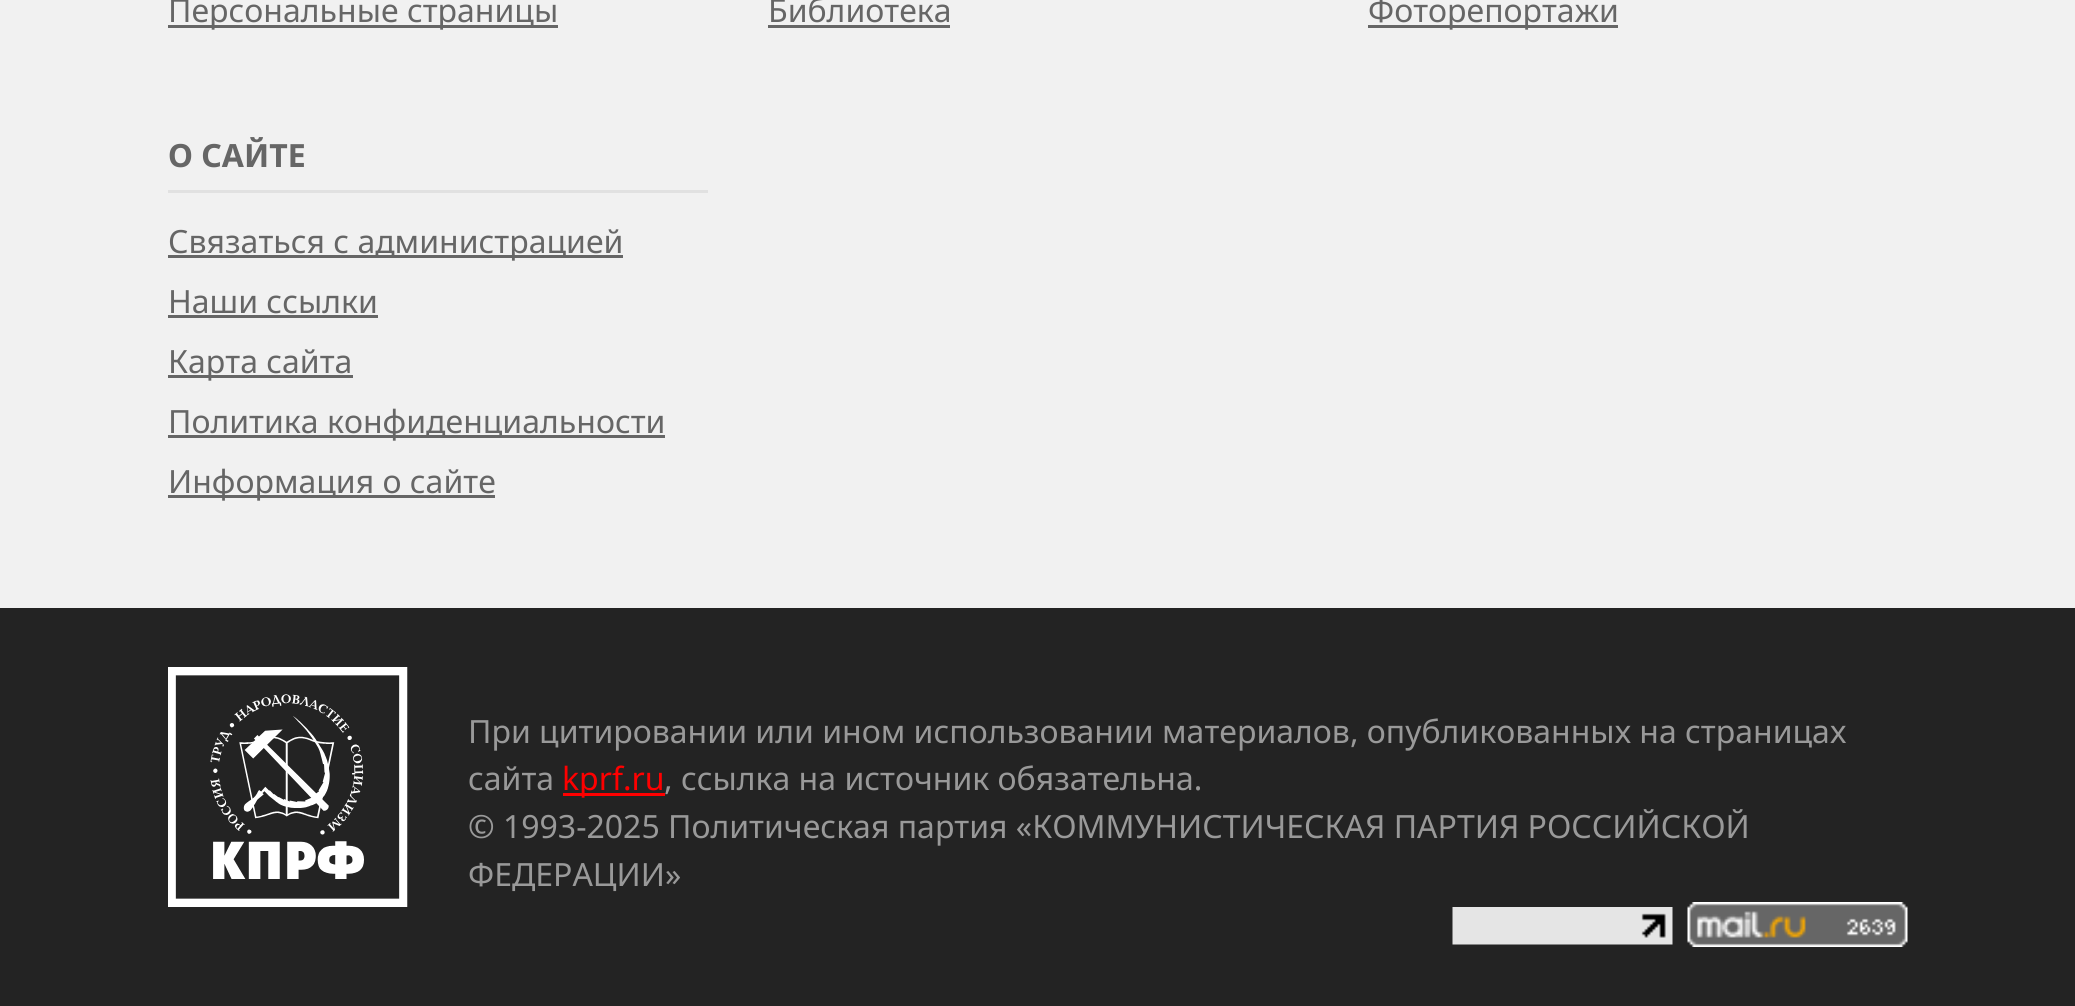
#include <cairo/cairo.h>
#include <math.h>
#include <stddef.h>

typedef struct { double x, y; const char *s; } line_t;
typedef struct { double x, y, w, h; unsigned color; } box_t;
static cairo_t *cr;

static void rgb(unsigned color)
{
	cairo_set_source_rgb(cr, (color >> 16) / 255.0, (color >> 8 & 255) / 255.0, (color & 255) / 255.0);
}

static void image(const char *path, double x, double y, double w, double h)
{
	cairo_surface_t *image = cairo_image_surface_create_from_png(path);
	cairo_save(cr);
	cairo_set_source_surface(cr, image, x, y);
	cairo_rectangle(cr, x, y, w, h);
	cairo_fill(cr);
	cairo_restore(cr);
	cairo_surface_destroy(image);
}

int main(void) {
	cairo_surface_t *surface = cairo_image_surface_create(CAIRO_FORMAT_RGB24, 2075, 1006);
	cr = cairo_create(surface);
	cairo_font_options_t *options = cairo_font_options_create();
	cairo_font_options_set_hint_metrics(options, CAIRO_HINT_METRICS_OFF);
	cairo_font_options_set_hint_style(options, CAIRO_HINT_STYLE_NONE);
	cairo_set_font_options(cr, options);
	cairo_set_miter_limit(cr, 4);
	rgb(0xf1f1f1);
	cairo_paint(cr);
	{
		static const box_t items[] = {
			{168, 25, 390, 3, 0x666666},
			{768, 25, 182, 3, 0x666666},
			{1368, 25, 250, 3, 0x666666},
			{168, 190, 540, 3, 0xe1e1e1},
			{168, 255, 455, 3, 0x666666},
			{168, 315, 210, 3, 0x666666},
			{168, 375, 185, 3, 0x666666},
			{168, 435, 497, 3, 0x666666},
			{168, 495, 327, 3, 0x666666},
			{0, 608, 2075, 398, 0x232323},
		};
		for (size_t i = 0; i < sizeof items / sizeof *items; i++) {
			rgb(items[i].color);
			cairo_rectangle(cr, items[i].x, items[i].y, items[i].w, items[i].h);
			cairo_fill(cr);
		}
	}
	image("img/1.png", 168, 667, 240, 240);
	rgb(0xff0000);
	cairo_rectangle(cr, 563, 793, 102, 3);
	cairo_fill(cr);
	image("img/2.png", 1452, 907, 221, 38);
	image("img/3.png", 1687, 902, 221, 45);
	cairo_select_font_face(cr, "Noto Sans", CAIRO_FONT_SLANT_NORMAL, CAIRO_FONT_WEIGHT_NORMAL);
	cairo_set_font_size(cr, 32);
	rgb(0x666666);
	{
		static const line_t items[] = {
			{168, 22, "Персональные страницы"},
			{768, 22, "Библиотека"},
			{1368, 22, "Фоторепортажи"},
		};
		for (size_t i = 0; i < sizeof items / sizeof *items; i++) {
			cairo_move_to(cr, items[i].x, items[i].y);
			cairo_show_text(cr, items[i].s);
		}
	}
	cairo_select_font_face(cr, "Noto Sans", CAIRO_FONT_SLANT_NORMAL, CAIRO_FONT_WEIGHT_BOLD);
	cairo_move_to(cr, 168, 167);
	cairo_show_text(cr, "О САЙТЕ");
	cairo_select_font_face(cr, "Noto Sans", CAIRO_FONT_SLANT_NORMAL, CAIRO_FONT_WEIGHT_NORMAL);
	{
		static const line_t items[] = {
			{168, 253, "Связаться с администрацией"},
			{168, 313, "Наши ссылки"},
			{168, 373, "Карта сайта"},
			{168, 433, "Политика конфиденциальности"},
			{168, 493, "Информация о сайте"},
		};
		for (size_t i = 0; i < sizeof items / sizeof *items; i++) {
			cairo_move_to(cr, items[i].x, items[i].y);
			cairo_show_text(cr, items[i].s);
		}
	}
	rgb(0x999999);
	cairo_move_to(cr, 468, 743);
	cairo_show_text(cr, "При цитировании или ином использовании материалов, опубликованных на страницах");
	cairo_move_to(cr, 468, 790);
	cairo_show_text(cr, "сайта");
	rgb(0xff0000);
	cairo_move_to(cr, 562, 790);
	cairo_show_text(cr, "kprf.ru");
	rgb(0x999999);
	{
		static const line_t items[] = {
			{664, 790, ", ссылка на источник обязательна."},
			{468, 838, "© 1993-2025 Политическая партия «КОММУНИСТИЧЕСКАЯ ПАРТИЯ РОССИЙСКОЙ"},
			{468, 886, "ФЕДЕРАЦИИ»"},
		};
		for (size_t i = 0; i < sizeof items / sizeof *items; i++) {
			cairo_move_to(cr, items[i].x, items[i].y);
			cairo_show_text(cr, items[i].s);
		}
	}
	cairo_surface_write_to_png(surface, "page.png");
	cairo_font_options_destroy(options);
	cairo_destroy(cr);
	cairo_surface_destroy(surface);
	return 0;
}
